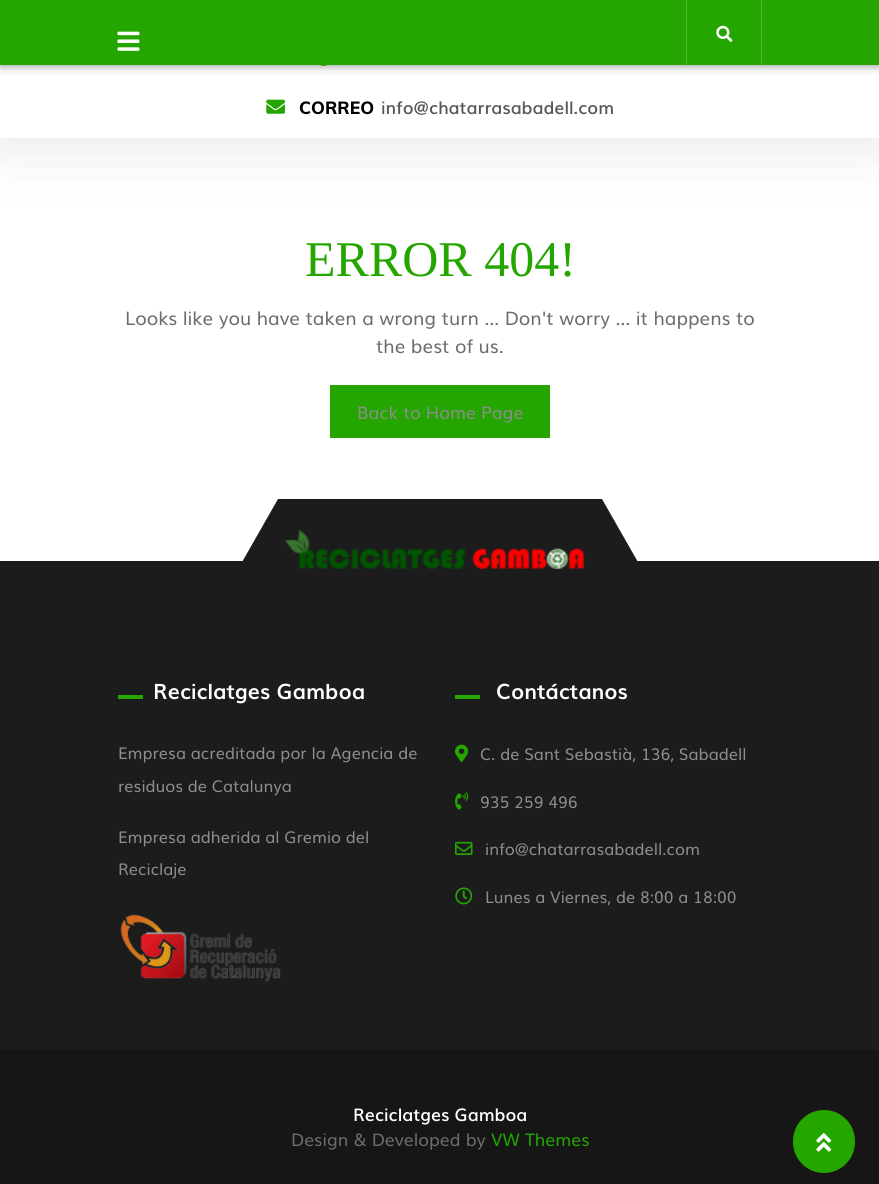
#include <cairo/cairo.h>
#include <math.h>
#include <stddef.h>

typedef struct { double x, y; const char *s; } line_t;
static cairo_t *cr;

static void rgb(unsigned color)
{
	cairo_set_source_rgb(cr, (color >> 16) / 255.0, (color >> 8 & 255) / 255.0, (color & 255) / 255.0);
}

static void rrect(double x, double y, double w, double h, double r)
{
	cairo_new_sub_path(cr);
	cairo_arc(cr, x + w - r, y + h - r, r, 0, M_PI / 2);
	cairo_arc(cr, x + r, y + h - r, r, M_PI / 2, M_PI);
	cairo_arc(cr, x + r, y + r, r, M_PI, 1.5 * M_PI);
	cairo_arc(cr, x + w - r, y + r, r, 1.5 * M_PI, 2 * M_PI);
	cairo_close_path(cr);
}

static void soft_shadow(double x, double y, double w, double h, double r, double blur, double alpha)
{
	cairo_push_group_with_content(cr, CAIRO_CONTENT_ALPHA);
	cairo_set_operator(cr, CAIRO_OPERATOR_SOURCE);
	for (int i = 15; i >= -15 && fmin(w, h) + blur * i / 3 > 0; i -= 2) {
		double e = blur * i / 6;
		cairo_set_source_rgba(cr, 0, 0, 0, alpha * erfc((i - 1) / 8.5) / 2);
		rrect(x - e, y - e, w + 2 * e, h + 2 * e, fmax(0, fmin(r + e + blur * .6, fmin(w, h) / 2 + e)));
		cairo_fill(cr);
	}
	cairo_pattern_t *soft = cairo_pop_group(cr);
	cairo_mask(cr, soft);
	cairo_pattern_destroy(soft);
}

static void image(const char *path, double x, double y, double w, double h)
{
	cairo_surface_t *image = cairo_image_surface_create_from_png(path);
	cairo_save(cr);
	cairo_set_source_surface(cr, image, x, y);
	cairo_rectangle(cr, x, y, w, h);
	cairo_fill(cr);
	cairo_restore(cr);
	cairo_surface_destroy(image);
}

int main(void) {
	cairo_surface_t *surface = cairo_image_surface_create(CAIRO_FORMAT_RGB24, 879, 1184);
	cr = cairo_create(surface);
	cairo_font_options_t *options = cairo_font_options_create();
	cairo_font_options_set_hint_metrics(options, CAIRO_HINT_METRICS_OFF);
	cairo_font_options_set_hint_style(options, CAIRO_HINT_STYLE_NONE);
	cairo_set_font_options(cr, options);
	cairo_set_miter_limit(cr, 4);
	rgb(0xffffff);
	cairo_paint(cr);
	cairo_save(cr);
	cairo_set_fill_rule(cr, CAIRO_FILL_RULE_EVEN_ODD);
	cairo_new_path(cr);
	cairo_move_to(cr, 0, 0);
	cairo_line_to(cr, 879, 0);
	cairo_line_to(cr, 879, 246);
	cairo_line_to(cr, 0, 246);
	cairo_close_path(cr);
	cairo_move_to(cr, 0, -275);
	cairo_line_to(cr, 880, -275);
	cairo_line_to(cr, 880, 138);
	cairo_line_to(cr, 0, 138);
	cairo_close_path(cr);
	cairo_clip(cr);
	rgb(0x000000);
	soft_shadow(0, -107, 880, 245, 0, 35.5, 0.11);
	cairo_restore(cr);
	image("img/3.png", 320, 65, 8, 2);
	rgb(0x808080);
	soft_shadow(0, 0, 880, 65, 0, 5, 1);
	rgb(0x24a500);
	cairo_rectangle(cr, 0, 0, 879, 65);
	cairo_fill(cr);
	image("img/1.png", 117, 31, 23, 20);
	rgb(0x50b733);
	cairo_rectangle(cr, 761, 0, 1, 65);
	cairo_fill(cr);
	cairo_rectangle(cr, 686, 0, 1, 65);
	cairo_fill(cr);
	image("img/2.png", 716, 25, 17, 17);
	image("img/4.png", 266, 99, 19, 15);
	rgb(0x24a500);
	cairo_rectangle(cr, 330, 385, 220, 53);
	cairo_fill(cr);
	rgb(0x1c1c1c);
	cairo_rectangle(cr, 0, 561, 879, 489);
	cairo_fill(cr);
	cairo_new_path(cr);
	cairo_move_to(cr, 659, 599);
	cairo_line_to(cr, 221, 599);
	cairo_line_to(cr, 278, 499);
	cairo_line_to(cr, 602, 499);
	cairo_close_path(cr);
	cairo_fill(cr);
	image("img/5.png", 285, 529, 300, 41);
	rgb(0x24a500);
	cairo_rectangle(cr, 118, 695, 25, 4);
	cairo_fill(cr);
	image("img/6.png", 120, 914, 161, 68);
	cairo_rectangle(cr, 455, 695, 25, 4);
	cairo_fill(cr);
	image("img/7.png", 455, 744, 14, 19);
	image("img/8.png", 455, 792, 14, 18);
	image("img/9.png", 455, 841, 18, 14);
	image("img/10.png", 455, 887, 18, 18);
	rgb(0x161616);
	cairo_rectangle(cr, 0, 1050, 879, 134);
	cairo_fill(cr);
	rgb(0x24a500);
	rrect(793, 1110, 62, 63, 31);
	cairo_fill(cr);
	image("img/11.png", 816, 1133, 16, 19);
	cairo_select_font_face(cr, "Muli ExtraBold", CAIRO_FONT_SLANT_NORMAL, CAIRO_FONT_WEIGHT_NORMAL);
	cairo_set_font_size(cr, 17.5);
	rgb(0x000000);
	cairo_move_to(cr, 299, 114);
	cairo_show_text(cr, "CORREO");
	cairo_select_font_face(cr, "Muli SemiBold", CAIRO_FONT_SLANT_NORMAL, CAIRO_FONT_WEIGHT_NORMAL);
	rgb(0x585858);
	cairo_move_to(cr, 381, 114);
	cairo_show_text(cr, "info@chatarrasabadell.com");
	cairo_select_font_face(cr, "Liberation Serif", CAIRO_FONT_SLANT_NORMAL, CAIRO_FONT_WEIGHT_NORMAL);
	cairo_set_font_size(cr, 50);
	rgb(0x24a500);
	cairo_move_to(cr, 305, 276);
	cairo_show_text(cr, "ERROR 404!");
	cairo_select_font_face(cr, "Muli", CAIRO_FONT_SLANT_NORMAL, CAIRO_FONT_WEIGHT_NORMAL);
	cairo_set_font_size(cr, 18.75);
	rgb(0x6c6c6c);
	cairo_move_to(cr, 125, 325);
	cairo_show_text(cr, "Looks like you have taken a wrong turn … Don't worry … it happens to");
	cairo_move_to(cr, 376, 353);
	cairo_show_text(cr, "the best of us.");
	cairo_set_font_size(cr, 17.5);
	rgb(0x8d8d8d);
	cairo_move_to(cr, 357, 419);
	cairo_show_text(cr, "Back to Home Page");
	cairo_select_font_face(cr, "Muli", CAIRO_FONT_SLANT_NORMAL, CAIRO_FONT_WEIGHT_BOLD);
	cairo_set_font_size(cr, 21.25);
	rgb(0xffffff);
	cairo_move_to(cr, 153, 699);
	cairo_show_text(cr, "Reciclatges Gamboa");
	cairo_select_font_face(cr, "Muli", CAIRO_FONT_SLANT_NORMAL, CAIRO_FONT_WEIGHT_NORMAL);
	cairo_set_font_size(cr, 16.25);
	rgb(0x8d8d8d);
	{
		static const line_t items[] = {
			{118, 759, "Empresa acreditada por la Agencia de"},
			{118, 792, "residuos de Catalunya"},
			{118, 843, "Empresa adherida al Gremio del"},
			{118, 875, "Reciclaje"},
		};
		for (size_t i = 0; i < sizeof items / sizeof *items; i++) {
			cairo_move_to(cr, items[i].x, items[i].y);
			cairo_show_text(cr, items[i].s);
		}
	}
	cairo_select_font_face(cr, "Muli", CAIRO_FONT_SLANT_NORMAL, CAIRO_FONT_WEIGHT_BOLD);
	cairo_set_font_size(cr, 21.25);
	rgb(0xffffff);
	cairo_move_to(cr, 496, 699);
	cairo_show_text(cr, "Contáctanos");
	cairo_select_font_face(cr, "Muli", CAIRO_FONT_SLANT_NORMAL, CAIRO_FONT_WEIGHT_NORMAL);
	cairo_set_font_size(cr, 16.25);
	rgb(0x8d8d8d);
	{
		static const line_t items[] = {
			{480, 760, "C. de Sant Sebastià, 136, Sabadell"},
			{480, 808, "935 259 496"},
			{485, 855, "info@chatarrasabadell.com"},
			{485, 903, "Lunes a Viernes, de 8:00 a 18:00"},
		};
		for (size_t i = 0; i < sizeof items / sizeof *items; i++) {
			cairo_move_to(cr, items[i].x, items[i].y);
			cairo_show_text(cr, items[i].s);
		}
	}
	cairo_select_font_face(cr, "Muli SemiBold", CAIRO_FONT_SLANT_NORMAL, CAIRO_FONT_WEIGHT_NORMAL);
	cairo_set_font_size(cr, 17.5);
	rgb(0xffffff);
	cairo_move_to(cr, 353, 1121);
	cairo_show_text(cr, "Reciclatges Gamboa");
	cairo_select_font_face(cr, "Muli", CAIRO_FONT_SLANT_NORMAL, CAIRO_FONT_WEIGHT_NORMAL);
	rgb(0x6c6c6c);
	cairo_move_to(cr, 291, 1146);
	cairo_show_text(cr, "Design & Developed by");
	rgb(0x24a500);
	cairo_move_to(cr, 491, 1146);
	cairo_show_text(cr, "VW Themes");
	cairo_surface_write_to_png(surface, "page.png");
	cairo_font_options_destroy(options);
	cairo_destroy(cr);
	cairo_surface_destroy(surface);
	return 0;
}
